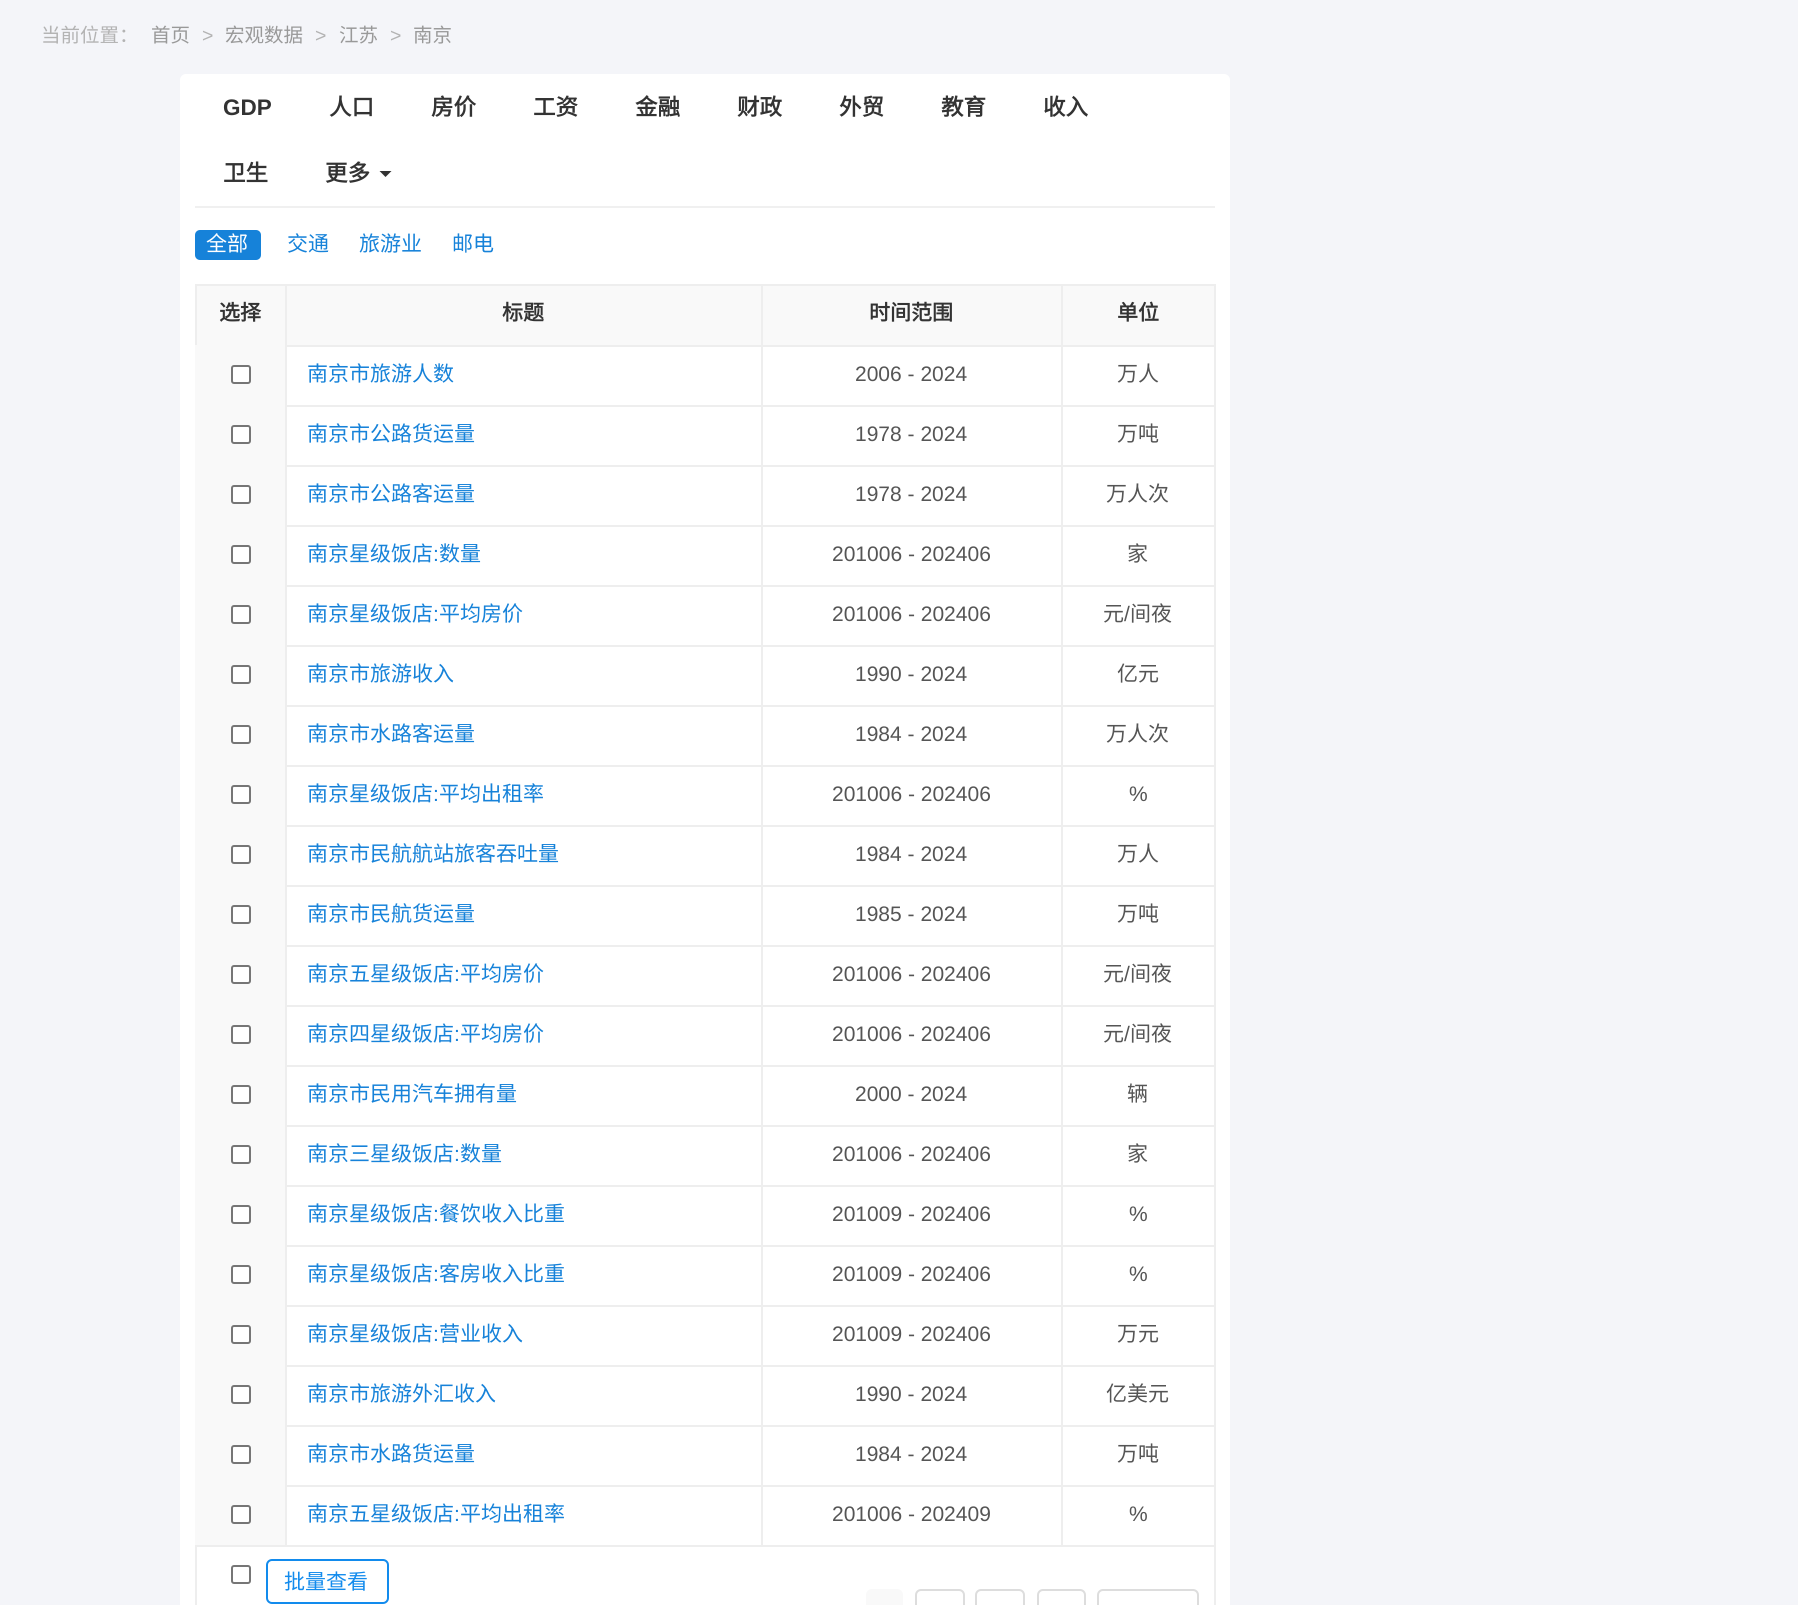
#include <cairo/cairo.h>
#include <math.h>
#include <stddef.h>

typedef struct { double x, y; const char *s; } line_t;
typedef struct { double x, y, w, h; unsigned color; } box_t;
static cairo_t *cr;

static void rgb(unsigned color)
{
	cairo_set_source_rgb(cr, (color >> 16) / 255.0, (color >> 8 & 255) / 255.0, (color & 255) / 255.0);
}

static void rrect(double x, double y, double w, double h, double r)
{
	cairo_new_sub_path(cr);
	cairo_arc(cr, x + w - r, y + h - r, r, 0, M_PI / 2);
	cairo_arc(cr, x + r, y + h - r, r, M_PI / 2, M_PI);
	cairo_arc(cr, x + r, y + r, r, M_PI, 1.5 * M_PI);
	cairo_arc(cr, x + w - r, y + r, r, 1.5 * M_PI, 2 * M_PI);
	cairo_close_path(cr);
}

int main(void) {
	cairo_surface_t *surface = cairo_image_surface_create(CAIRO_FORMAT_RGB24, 1798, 1605);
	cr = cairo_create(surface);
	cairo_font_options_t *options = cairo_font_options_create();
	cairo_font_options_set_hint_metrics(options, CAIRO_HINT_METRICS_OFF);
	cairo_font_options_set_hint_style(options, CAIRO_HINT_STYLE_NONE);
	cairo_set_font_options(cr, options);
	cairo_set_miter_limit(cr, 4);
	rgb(0xf4f5f9);
	cairo_paint(cr);
	rgb(0xffffff);
	rrect(180, 74, 1050, 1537, 6);
	cairo_fill(cr);
	rgb(0xf0f0f0);
	cairo_rectangle(cr, 195, 206, 1020, 2);
	cairo_fill(cr);
	rgb(0x333333);
	cairo_new_path(cr);
	cairo_move_to(cr, 379.5, 171);
	cairo_line_to(cr, 391.5, 171);
	cairo_line_to(cr, 385.5, 177);
	cairo_close_path(cr);
	cairo_fill(cr);
	rgb(0x1682d9);
	rrect(195, 230, 66, 30, 5);
	cairo_fill(cr);
	{
		static const box_t items[] = {
			{197, 286, 88, 59, 0xf9f9f9},
			{1061, 284, 154, 2, 0xeeeeee},
			{1061, 345, 154, 2, 0xeeeeee},
			{1061, 405, 154, 2, 0xeeeeee},
			{1061, 465, 154, 2, 0xeeeeee},
			{1061, 525, 154, 2, 0xeeeeee},
			{1061, 585, 154, 2, 0xeeeeee},
			{1061, 645, 154, 2, 0xeeeeee},
			{1061, 705, 154, 2, 0xeeeeee},
			{1061, 765, 154, 2, 0xeeeeee},
			{1061, 825, 154, 2, 0xeeeeee},
			{1061, 885, 154, 2, 0xeeeeee},
			{1061, 945, 154, 2, 0xeeeeee},
			{1061, 1005, 154, 2, 0xeeeeee},
			{1061, 1065, 154, 2, 0xeeeeee},
			{1061, 1125, 154, 2, 0xeeeeee},
			{1061, 1185, 154, 2, 0xeeeeee},
			{1061, 1245, 154, 2, 0xeeeeee},
			{1061, 1305, 154, 2, 0xeeeeee},
			{1061, 1365, 154, 2, 0xeeeeee},
			{1061, 1425, 154, 2, 0xeeeeee},
			{1061, 1485, 154, 2, 0xeeeeee},
			{195, 1545, 1020, 2, 0xeeeeee},
			{1061, 1485, 2, 62, 0xeeeeee},
			{761, 1485, 301, 2, 0xeeeeee},
			{1061, 1425, 2, 62, 0xeeeeee},
			{761, 1425, 301, 2, 0xeeeeee},
			{1061, 1365, 2, 62, 0xeeeeee},
			{761, 1365, 301, 2, 0xeeeeee},
			{1061, 1305, 2, 62, 0xeeeeee},
			{761, 1305, 301, 2, 0xeeeeee},
			{1061, 1245, 2, 62, 0xeeeeee},
			{761, 1245, 301, 2, 0xeeeeee},
			{1061, 1185, 2, 62, 0xeeeeee},
			{761, 1185, 301, 2, 0xeeeeee},
			{1061, 1125, 2, 62, 0xeeeeee},
			{761, 1125, 301, 2, 0xeeeeee},
			{1061, 1065, 2, 62, 0xeeeeee},
			{761, 1065, 301, 2, 0xeeeeee},
			{1061, 1005, 2, 62, 0xeeeeee},
			{761, 1005, 301, 2, 0xeeeeee},
			{1061, 945, 2, 62, 0xeeeeee},
			{761, 945, 301, 2, 0xeeeeee},
			{1061, 885, 2, 62, 0xeeeeee},
			{761, 885, 301, 2, 0xeeeeee},
			{1061, 825, 2, 62, 0xeeeeee},
			{761, 825, 301, 2, 0xeeeeee},
			{1061, 765, 2, 62, 0xeeeeee},
			{761, 765, 301, 2, 0xeeeeee},
			{1061, 705, 2, 62, 0xeeeeee},
			{761, 705, 301, 2, 0xeeeeee},
			{1061, 645, 2, 62, 0xeeeeee},
			{761, 645, 301, 2, 0xeeeeee},
			{1061, 585, 2, 62, 0xeeeeee},
			{761, 585, 301, 2, 0xeeeeee},
			{1061, 525, 2, 62, 0xeeeeee},
			{761, 525, 301, 2, 0xeeeeee},
			{1061, 465, 2, 62, 0xeeeeee},
			{761, 465, 301, 2, 0xeeeeee},
			{1061, 405, 2, 62, 0xeeeeee},
			{761, 405, 301, 2, 0xeeeeee},
			{1061, 345, 2, 62, 0xeeeeee},
			{761, 345, 301, 2, 0xeeeeee},
			{1061, 284, 2, 63, 0xeeeeee},
			{761, 284, 301, 2, 0xeeeeee},
			{761, 1485, 2, 62, 0xeeeeee},
			{285, 1485, 477, 2, 0xeeeeee},
			{761, 1425, 2, 62, 0xeeeeee},
			{285, 1425, 477, 2, 0xeeeeee},
			{761, 1365, 2, 62, 0xeeeeee},
			{285, 1365, 477, 2, 0xeeeeee},
			{761, 1305, 2, 62, 0xeeeeee},
			{285, 1305, 477, 2, 0xeeeeee},
			{761, 1245, 2, 62, 0xeeeeee},
			{285, 1245, 477, 2, 0xeeeeee},
			{761, 1185, 2, 62, 0xeeeeee},
			{285, 1185, 477, 2, 0xeeeeee},
			{761, 1125, 2, 62, 0xeeeeee},
			{285, 1125, 477, 2, 0xeeeeee},
			{761, 1065, 2, 62, 0xeeeeee},
			{285, 1065, 477, 2, 0xeeeeee},
			{761, 1005, 2, 62, 0xeeeeee},
			{285, 1005, 477, 2, 0xeeeeee},
			{761, 945, 2, 62, 0xeeeeee},
			{285, 945, 477, 2, 0xeeeeee},
			{761, 885, 2, 62, 0xeeeeee},
			{285, 885, 477, 2, 0xeeeeee},
			{761, 825, 2, 62, 0xeeeeee},
			{285, 825, 477, 2, 0xeeeeee},
			{761, 765, 2, 62, 0xeeeeee},
			{285, 765, 477, 2, 0xeeeeee},
			{761, 705, 2, 62, 0xeeeeee},
			{285, 705, 477, 2, 0xeeeeee},
			{761, 645, 2, 62, 0xeeeeee},
			{285, 645, 477, 2, 0xeeeeee},
			{761, 585, 2, 62, 0xeeeeee},
			{285, 585, 477, 2, 0xeeeeee},
			{761, 525, 2, 62, 0xeeeeee},
			{285, 525, 477, 2, 0xeeeeee},
			{761, 465, 2, 62, 0xeeeeee},
			{285, 465, 477, 2, 0xeeeeee},
			{761, 405, 2, 62, 0xeeeeee},
			{285, 405, 477, 2, 0xeeeeee},
			{761, 345, 2, 62, 0xeeeeee},
			{285, 345, 477, 2, 0xeeeeee},
			{761, 284, 2, 63, 0xeeeeee},
			{285, 284, 477, 2, 0xeeeeee},
			{285, 1485, 2, 62, 0xeeeeee},
			{285, 1425, 2, 62, 0xeeeeee},
			{285, 1365, 2, 62, 0xeeeeee},
			{285, 1305, 2, 62, 0xeeeeee},
			{285, 1245, 2, 62, 0xeeeeee},
			{285, 1185, 2, 62, 0xeeeeee},
			{285, 1125, 2, 62, 0xeeeeee},
			{285, 1065, 2, 62, 0xeeeeee},
			{285, 1005, 2, 62, 0xeeeeee},
			{285, 945, 2, 62, 0xeeeeee},
			{285, 885, 2, 62, 0xeeeeee},
			{285, 825, 2, 62, 0xeeeeee},
			{285, 765, 2, 62, 0xeeeeee},
			{285, 705, 2, 62, 0xeeeeee},
			{285, 645, 2, 62, 0xeeeeee},
			{285, 585, 2, 62, 0xeeeeee},
			{285, 525, 2, 62, 0xeeeeee},
			{285, 465, 2, 62, 0xeeeeee},
			{285, 405, 2, 62, 0xeeeeee},
			{285, 345, 2, 62, 0xeeeeee},
			{285, 284, 2, 63, 0xeeeeee},
			{195, 284, 92, 2, 0xeeeeee},
			{195, 284, 2, 63, 0xeeeeee},
			{287, 286, 474, 59, 0xf9f9f9},
			{763, 286, 298, 59, 0xf9f9f9},
			{1063, 286, 151, 59, 0xf9f9f9},
			{1214, 1545, 2, 60, 0xeeeeee},
			{1214, 1485, 2, 62, 0xeeeeee},
			{1214, 1425, 2, 62, 0xeeeeee},
			{1214, 1365, 2, 62, 0xeeeeee},
			{1214, 1305, 2, 62, 0xeeeeee},
			{1214, 1245, 2, 62, 0xeeeeee},
			{1214, 1185, 2, 62, 0xeeeeee},
			{1214, 1125, 2, 62, 0xeeeeee},
			{1214, 1065, 2, 62, 0xeeeeee},
			{1214, 1005, 2, 62, 0xeeeeee},
			{1214, 945, 2, 62, 0xeeeeee},
			{1214, 885, 2, 62, 0xeeeeee},
			{1214, 825, 2, 62, 0xeeeeee},
			{1214, 765, 2, 62, 0xeeeeee},
			{1214, 705, 2, 62, 0xeeeeee},
			{1214, 645, 2, 62, 0xeeeeee},
			{1214, 585, 2, 62, 0xeeeeee},
			{1214, 525, 2, 62, 0xeeeeee},
			{1214, 465, 2, 62, 0xeeeeee},
			{1214, 405, 2, 62, 0xeeeeee},
			{1214, 345, 2, 62, 0xeeeeee},
			{1214, 284, 2, 63, 0xeeeeee},
			{195, 345, 90, 1200, 0xf9f9f9},
		};
		for (size_t i = 0; i < sizeof items / sizeof *items; i++) {
			rgb(items[i].color);
			cairo_rectangle(cr, items[i].x, items[i].y, items[i].w, items[i].h);
			cairo_fill(cr);
		}
	}
	rgb(0xffffff);
	rrect(232, 366, 18, 17, 2);
	cairo_fill_preserve(cr);
	rgb(0x767676);
	cairo_stroke(cr);
	rgb(0xffffff);
	rrect(232, 426, 18, 17, 2);
	cairo_fill_preserve(cr);
	rgb(0x767676);
	cairo_stroke(cr);
	rgb(0xffffff);
	rrect(232, 486, 18, 17, 2);
	cairo_fill_preserve(cr);
	rgb(0x767676);
	cairo_stroke(cr);
	rgb(0xffffff);
	rrect(232, 546, 18, 17, 2);
	cairo_fill_preserve(cr);
	rgb(0x767676);
	cairo_stroke(cr);
	rgb(0xffffff);
	rrect(232, 606, 18, 17, 2);
	cairo_fill_preserve(cr);
	rgb(0x767676);
	cairo_stroke(cr);
	rgb(0xffffff);
	rrect(232, 666, 18, 17, 2);
	cairo_fill_preserve(cr);
	rgb(0x767676);
	cairo_stroke(cr);
	rgb(0xffffff);
	rrect(232, 726, 18, 17, 2);
	cairo_fill_preserve(cr);
	rgb(0x767676);
	cairo_stroke(cr);
	rgb(0xffffff);
	rrect(232, 786, 18, 17, 2);
	cairo_fill_preserve(cr);
	rgb(0x767676);
	cairo_stroke(cr);
	rgb(0xffffff);
	rrect(232, 846, 18, 17, 2);
	cairo_fill_preserve(cr);
	rgb(0x767676);
	cairo_stroke(cr);
	rgb(0xffffff);
	rrect(232, 906, 18, 17, 2);
	cairo_fill_preserve(cr);
	rgb(0x767676);
	cairo_stroke(cr);
	rgb(0xffffff);
	rrect(232, 966, 18, 17, 2);
	cairo_fill_preserve(cr);
	rgb(0x767676);
	cairo_stroke(cr);
	rgb(0xffffff);
	rrect(232, 1026, 18, 17, 2);
	cairo_fill_preserve(cr);
	rgb(0x767676);
	cairo_stroke(cr);
	rgb(0xffffff);
	rrect(232, 1086, 18, 17, 2);
	cairo_fill_preserve(cr);
	rgb(0x767676);
	cairo_stroke(cr);
	rgb(0xffffff);
	rrect(232, 1146, 18, 17, 2);
	cairo_fill_preserve(cr);
	rgb(0x767676);
	cairo_stroke(cr);
	rgb(0xffffff);
	rrect(232, 1206, 18, 17, 2);
	cairo_fill_preserve(cr);
	rgb(0x767676);
	cairo_stroke(cr);
	rgb(0xffffff);
	rrect(232, 1266, 18, 17, 2);
	cairo_fill_preserve(cr);
	rgb(0x767676);
	cairo_stroke(cr);
	rgb(0xffffff);
	rrect(232, 1326, 18, 17, 2);
	cairo_fill_preserve(cr);
	rgb(0x767676);
	cairo_stroke(cr);
	rgb(0xffffff);
	rrect(232, 1386, 18, 17, 2);
	cairo_fill_preserve(cr);
	rgb(0x767676);
	cairo_stroke(cr);
	rgb(0xffffff);
	rrect(232, 1446, 18, 17, 2);
	cairo_fill_preserve(cr);
	rgb(0x767676);
	cairo_stroke(cr);
	rgb(0xffffff);
	rrect(232, 1506, 18, 17, 2);
	cairo_fill_preserve(cr);
	rgb(0x767676);
	cairo_stroke(cr);
	rgb(0xeeeeee);
	cairo_rectangle(cr, 195, 1545, 2, 60);
	cairo_fill(cr);
	rrect(232, 1566, 18, 17, 2);
	rgb(0x767676);
	cairo_stroke(cr);
	rrect(267, 1560, 121, 43, 5);
	rgb(0x128bed);
	cairo_stroke(cr);
	rgb(0xf9f9f9);
	rrect(866, 1589, 37, 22, 6);
	cairo_fill(cr);
	rrect(916, 1590, 48, 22, 5);
	rgb(0xdddddd);
	cairo_stroke(cr);
	rrect(976, 1590, 48, 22, 5);
	cairo_stroke(cr);
	rrect(1038, 1590, 47, 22, 5);
	cairo_stroke(cr);
	rrect(1098, 1590, 100, 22, 5);
	cairo_stroke(cr);
	cairo_select_font_face(cr, "Noto Sans CJK SC", CAIRO_FONT_SLANT_NORMAL, CAIRO_FONT_WEIGHT_NORMAL);
	cairo_set_font_size(cr, 19.5);
	rgb(0xb3b3b3);
	cairo_move_to(cr, 41, 42);
	cairo_show_text(cr, "当前位置：");
	rgb(0x999999);
	cairo_move_to(cr, 151, 42);
	cairo_show_text(cr, "首页");
	cairo_select_font_face(cr, "Liberation Sans", CAIRO_FONT_SLANT_NORMAL, CAIRO_FONT_WEIGHT_NORMAL);
	rgb(0xb3b3b3);
	cairo_move_to(cr, 202, 42);
	cairo_show_text(cr, ">");
	cairo_select_font_face(cr, "Noto Sans CJK SC", CAIRO_FONT_SLANT_NORMAL, CAIRO_FONT_WEIGHT_NORMAL);
	rgb(0x999999);
	cairo_move_to(cr, 225, 42);
	cairo_show_text(cr, "宏观数据");
	cairo_select_font_face(cr, "Liberation Sans", CAIRO_FONT_SLANT_NORMAL, CAIRO_FONT_WEIGHT_NORMAL);
	rgb(0xb3b3b3);
	cairo_move_to(cr, 315, 42);
	cairo_show_text(cr, ">");
	cairo_select_font_face(cr, "Noto Sans CJK SC", CAIRO_FONT_SLANT_NORMAL, CAIRO_FONT_WEIGHT_NORMAL);
	rgb(0x999999);
	cairo_move_to(cr, 339, 42);
	cairo_show_text(cr, "江苏");
	cairo_select_font_face(cr, "Liberation Sans", CAIRO_FONT_SLANT_NORMAL, CAIRO_FONT_WEIGHT_NORMAL);
	rgb(0xb3b3b3);
	cairo_move_to(cr, 390, 42);
	cairo_show_text(cr, ">");
	cairo_select_font_face(cr, "Noto Sans CJK SC", CAIRO_FONT_SLANT_NORMAL, CAIRO_FONT_WEIGHT_NORMAL);
	rgb(0x999999);
	cairo_move_to(cr, 413, 42);
	cairo_show_text(cr, "南京");
	cairo_select_font_face(cr, "Liberation Sans", CAIRO_FONT_SLANT_NORMAL, CAIRO_FONT_WEIGHT_BOLD);
	cairo_set_font_size(cr, 22.5);
	rgb(0x333333);
	cairo_move_to(cr, 223, 115);
	cairo_show_text(cr, "GDP");
	cairo_select_font_face(cr, "Noto Sans CJK SC", CAIRO_FONT_SLANT_NORMAL, CAIRO_FONT_WEIGHT_BOLD);
	{
		static const line_t items[] = {
			{329, 115, "人口"},
			{431, 115, "房价"},
			{533, 115, "工资"},
			{635, 115, "金融"},
			{737, 115, "财政"},
			{839, 115, "外贸"},
			{941, 115, "教育"},
			{1043, 115, "收入"},
			{223, 181, "卫生"},
			{325, 181, "更多"},
		};
		for (size_t i = 0; i < sizeof items / sizeof *items; i++) {
			cairo_move_to(cr, items[i].x, items[i].y);
			cairo_show_text(cr, items[i].s);
		}
	}
	cairo_select_font_face(cr, "Noto Sans CJK SC", CAIRO_FONT_SLANT_NORMAL, CAIRO_FONT_WEIGHT_NORMAL);
	cairo_set_font_size(cr, 21);
	rgb(0xffffff);
	cairo_move_to(cr, 206, 251);
	cairo_show_text(cr, "全部");
	rgb(0x1682d9);
	{
		static const line_t items[] = {
			{287, 251, "交通"},
			{359, 251, "旅游业"},
			{452, 251, "邮电"},
		};
		for (size_t i = 0; i < sizeof items / sizeof *items; i++) {
			cairo_move_to(cr, items[i].x, items[i].y);
			cairo_show_text(cr, items[i].s);
		}
	}
	cairo_select_font_face(cr, "Noto Sans CJK SC", CAIRO_FONT_SLANT_NORMAL, CAIRO_FONT_WEIGHT_BOLD);
	rgb(0x333333);
	{
		static const line_t items[] = {
			{219, 320, "选择"},
			{502, 320, "标题"},
			{869, 320, "时间范围"},
			{1117, 320, "单位"},
		};
		for (size_t i = 0; i < sizeof items / sizeof *items; i++) {
			cairo_move_to(cr, items[i].x, items[i].y);
			cairo_show_text(cr, items[i].s);
		}
	}
	cairo_select_font_face(cr, "Noto Sans CJK SC", CAIRO_FONT_SLANT_NORMAL, CAIRO_FONT_WEIGHT_NORMAL);
	rgb(0x1682d9);
	cairo_move_to(cr, 307, 381);
	cairo_show_text(cr, "南京市旅游人数");
	cairo_select_font_face(cr, "Liberation Sans", CAIRO_FONT_SLANT_NORMAL, CAIRO_FONT_WEIGHT_NORMAL);
	rgb(0x555555);
	cairo_move_to(cr, 855, 381);
	cairo_show_text(cr, "2006 - 2024");
	cairo_select_font_face(cr, "Noto Sans CJK SC", CAIRO_FONT_SLANT_NORMAL, CAIRO_FONT_WEIGHT_NORMAL);
	cairo_move_to(cr, 1117, 381);
	cairo_show_text(cr, "万人");
	rgb(0x1682d9);
	cairo_move_to(cr, 307, 441);
	cairo_show_text(cr, "南京市公路货运量");
	cairo_select_font_face(cr, "Liberation Sans", CAIRO_FONT_SLANT_NORMAL, CAIRO_FONT_WEIGHT_NORMAL);
	rgb(0x555555);
	cairo_move_to(cr, 855, 441);
	cairo_show_text(cr, "1978 - 2024");
	cairo_select_font_face(cr, "Noto Sans CJK SC", CAIRO_FONT_SLANT_NORMAL, CAIRO_FONT_WEIGHT_NORMAL);
	cairo_move_to(cr, 1117, 441);
	cairo_show_text(cr, "万吨");
	rgb(0x1682d9);
	cairo_move_to(cr, 307, 501);
	cairo_show_text(cr, "南京市公路客运量");
	cairo_select_font_face(cr, "Liberation Sans", CAIRO_FONT_SLANT_NORMAL, CAIRO_FONT_WEIGHT_NORMAL);
	rgb(0x555555);
	cairo_move_to(cr, 855, 501);
	cairo_show_text(cr, "1978 - 2024");
	cairo_select_font_face(cr, "Noto Sans CJK SC", CAIRO_FONT_SLANT_NORMAL, CAIRO_FONT_WEIGHT_NORMAL);
	cairo_move_to(cr, 1106, 501);
	cairo_show_text(cr, "万人次");
	rgb(0x1682d9);
	cairo_move_to(cr, 307, 561);
	cairo_show_text(cr, "南京星级饭店");
	cairo_select_font_face(cr, "Liberation Sans", CAIRO_FONT_SLANT_NORMAL, CAIRO_FONT_WEIGHT_NORMAL);
	cairo_move_to(cr, 433, 561);
	cairo_show_text(cr, ":");
	cairo_select_font_face(cr, "Noto Sans CJK SC", CAIRO_FONT_SLANT_NORMAL, CAIRO_FONT_WEIGHT_NORMAL);
	cairo_move_to(cr, 439, 561);
	cairo_show_text(cr, "数量");
	cairo_select_font_face(cr, "Liberation Sans", CAIRO_FONT_SLANT_NORMAL, CAIRO_FONT_WEIGHT_NORMAL);
	rgb(0x555555);
	cairo_move_to(cr, 832, 561);
	cairo_show_text(cr, "201006 - 202406");
	cairo_select_font_face(cr, "Noto Sans CJK SC", CAIRO_FONT_SLANT_NORMAL, CAIRO_FONT_WEIGHT_NORMAL);
	cairo_move_to(cr, 1127, 561);
	cairo_show_text(cr, "家");
	rgb(0x1682d9);
	cairo_move_to(cr, 307, 621);
	cairo_show_text(cr, "南京星级饭店");
	cairo_select_font_face(cr, "Liberation Sans", CAIRO_FONT_SLANT_NORMAL, CAIRO_FONT_WEIGHT_NORMAL);
	cairo_move_to(cr, 433, 621);
	cairo_show_text(cr, ":");
	cairo_select_font_face(cr, "Noto Sans CJK SC", CAIRO_FONT_SLANT_NORMAL, CAIRO_FONT_WEIGHT_NORMAL);
	cairo_move_to(cr, 439, 621);
	cairo_show_text(cr, "平均房价");
	cairo_select_font_face(cr, "Liberation Sans", CAIRO_FONT_SLANT_NORMAL, CAIRO_FONT_WEIGHT_NORMAL);
	rgb(0x555555);
	cairo_move_to(cr, 832, 621);
	cairo_show_text(cr, "201006 - 202406");
	cairo_select_font_face(cr, "Noto Sans CJK SC", CAIRO_FONT_SLANT_NORMAL, CAIRO_FONT_WEIGHT_NORMAL);
	cairo_move_to(cr, 1103, 621);
	cairo_show_text(cr, "元");
	cairo_select_font_face(cr, "Liberation Sans", CAIRO_FONT_SLANT_NORMAL, CAIRO_FONT_WEIGHT_NORMAL);
	cairo_move_to(cr, 1124, 621);
	cairo_show_text(cr, "/");
	cairo_select_font_face(cr, "Noto Sans CJK SC", CAIRO_FONT_SLANT_NORMAL, CAIRO_FONT_WEIGHT_NORMAL);
	cairo_move_to(cr, 1130, 621);
	cairo_show_text(cr, "间夜");
	rgb(0x1682d9);
	cairo_move_to(cr, 307, 681);
	cairo_show_text(cr, "南京市旅游收入");
	cairo_select_font_face(cr, "Liberation Sans", CAIRO_FONT_SLANT_NORMAL, CAIRO_FONT_WEIGHT_NORMAL);
	rgb(0x555555);
	cairo_move_to(cr, 855, 681);
	cairo_show_text(cr, "1990 - 2024");
	cairo_select_font_face(cr, "Noto Sans CJK SC", CAIRO_FONT_SLANT_NORMAL, CAIRO_FONT_WEIGHT_NORMAL);
	cairo_move_to(cr, 1117, 681);
	cairo_show_text(cr, "亿元");
	rgb(0x1682d9);
	cairo_move_to(cr, 307, 741);
	cairo_show_text(cr, "南京市水路客运量");
	cairo_select_font_face(cr, "Liberation Sans", CAIRO_FONT_SLANT_NORMAL, CAIRO_FONT_WEIGHT_NORMAL);
	rgb(0x555555);
	cairo_move_to(cr, 855, 741);
	cairo_show_text(cr, "1984 - 2024");
	cairo_select_font_face(cr, "Noto Sans CJK SC", CAIRO_FONT_SLANT_NORMAL, CAIRO_FONT_WEIGHT_NORMAL);
	cairo_move_to(cr, 1106, 741);
	cairo_show_text(cr, "万人次");
	rgb(0x1682d9);
	cairo_move_to(cr, 307, 801);
	cairo_show_text(cr, "南京星级饭店");
	cairo_select_font_face(cr, "Liberation Sans", CAIRO_FONT_SLANT_NORMAL, CAIRO_FONT_WEIGHT_NORMAL);
	cairo_move_to(cr, 433, 801);
	cairo_show_text(cr, ":");
	cairo_select_font_face(cr, "Noto Sans CJK SC", CAIRO_FONT_SLANT_NORMAL, CAIRO_FONT_WEIGHT_NORMAL);
	cairo_move_to(cr, 439, 801);
	cairo_show_text(cr, "平均出租率");
	cairo_select_font_face(cr, "Liberation Sans", CAIRO_FONT_SLANT_NORMAL, CAIRO_FONT_WEIGHT_NORMAL);
	rgb(0x555555);
	cairo_move_to(cr, 832, 801);
	cairo_show_text(cr, "201006 - 202406");
	cairo_move_to(cr, 1129, 801);
	cairo_show_text(cr, "%");
	cairo_select_font_face(cr, "Noto Sans CJK SC", CAIRO_FONT_SLANT_NORMAL, CAIRO_FONT_WEIGHT_NORMAL);
	rgb(0x1682d9);
	cairo_move_to(cr, 307, 861);
	cairo_show_text(cr, "南京市民航航站旅客吞吐量");
	cairo_select_font_face(cr, "Liberation Sans", CAIRO_FONT_SLANT_NORMAL, CAIRO_FONT_WEIGHT_NORMAL);
	rgb(0x555555);
	cairo_move_to(cr, 855, 861);
	cairo_show_text(cr, "1984 - 2024");
	cairo_select_font_face(cr, "Noto Sans CJK SC", CAIRO_FONT_SLANT_NORMAL, CAIRO_FONT_WEIGHT_NORMAL);
	cairo_move_to(cr, 1117, 861);
	cairo_show_text(cr, "万人");
	rgb(0x1682d9);
	cairo_move_to(cr, 307, 921);
	cairo_show_text(cr, "南京市民航货运量");
	cairo_select_font_face(cr, "Liberation Sans", CAIRO_FONT_SLANT_NORMAL, CAIRO_FONT_WEIGHT_NORMAL);
	rgb(0x555555);
	cairo_move_to(cr, 855, 921);
	cairo_show_text(cr, "1985 - 2024");
	cairo_select_font_face(cr, "Noto Sans CJK SC", CAIRO_FONT_SLANT_NORMAL, CAIRO_FONT_WEIGHT_NORMAL);
	cairo_move_to(cr, 1117, 921);
	cairo_show_text(cr, "万吨");
	rgb(0x1682d9);
	cairo_move_to(cr, 307, 981);
	cairo_show_text(cr, "南京五星级饭店");
	cairo_select_font_face(cr, "Liberation Sans", CAIRO_FONT_SLANT_NORMAL, CAIRO_FONT_WEIGHT_NORMAL);
	cairo_move_to(cr, 454, 981);
	cairo_show_text(cr, ":");
	cairo_select_font_face(cr, "Noto Sans CJK SC", CAIRO_FONT_SLANT_NORMAL, CAIRO_FONT_WEIGHT_NORMAL);
	cairo_move_to(cr, 460, 981);
	cairo_show_text(cr, "平均房价");
	cairo_select_font_face(cr, "Liberation Sans", CAIRO_FONT_SLANT_NORMAL, CAIRO_FONT_WEIGHT_NORMAL);
	rgb(0x555555);
	cairo_move_to(cr, 832, 981);
	cairo_show_text(cr, "201006 - 202406");
	cairo_select_font_face(cr, "Noto Sans CJK SC", CAIRO_FONT_SLANT_NORMAL, CAIRO_FONT_WEIGHT_NORMAL);
	cairo_move_to(cr, 1103, 981);
	cairo_show_text(cr, "元");
	cairo_select_font_face(cr, "Liberation Sans", CAIRO_FONT_SLANT_NORMAL, CAIRO_FONT_WEIGHT_NORMAL);
	cairo_move_to(cr, 1124, 981);
	cairo_show_text(cr, "/");
	cairo_select_font_face(cr, "Noto Sans CJK SC", CAIRO_FONT_SLANT_NORMAL, CAIRO_FONT_WEIGHT_NORMAL);
	cairo_move_to(cr, 1130, 981);
	cairo_show_text(cr, "间夜");
	rgb(0x1682d9);
	cairo_move_to(cr, 307, 1041);
	cairo_show_text(cr, "南京四星级饭店");
	cairo_select_font_face(cr, "Liberation Sans", CAIRO_FONT_SLANT_NORMAL, CAIRO_FONT_WEIGHT_NORMAL);
	cairo_move_to(cr, 454, 1041);
	cairo_show_text(cr, ":");
	cairo_select_font_face(cr, "Noto Sans CJK SC", CAIRO_FONT_SLANT_NORMAL, CAIRO_FONT_WEIGHT_NORMAL);
	cairo_move_to(cr, 460, 1041);
	cairo_show_text(cr, "平均房价");
	cairo_select_font_face(cr, "Liberation Sans", CAIRO_FONT_SLANT_NORMAL, CAIRO_FONT_WEIGHT_NORMAL);
	rgb(0x555555);
	cairo_move_to(cr, 832, 1041);
	cairo_show_text(cr, "201006 - 202406");
	cairo_select_font_face(cr, "Noto Sans CJK SC", CAIRO_FONT_SLANT_NORMAL, CAIRO_FONT_WEIGHT_NORMAL);
	cairo_move_to(cr, 1103, 1041);
	cairo_show_text(cr, "元");
	cairo_select_font_face(cr, "Liberation Sans", CAIRO_FONT_SLANT_NORMAL, CAIRO_FONT_WEIGHT_NORMAL);
	cairo_move_to(cr, 1124, 1041);
	cairo_show_text(cr, "/");
	cairo_select_font_face(cr, "Noto Sans CJK SC", CAIRO_FONT_SLANT_NORMAL, CAIRO_FONT_WEIGHT_NORMAL);
	cairo_move_to(cr, 1130, 1041);
	cairo_show_text(cr, "间夜");
	rgb(0x1682d9);
	cairo_move_to(cr, 307, 1101);
	cairo_show_text(cr, "南京市民用汽车拥有量");
	cairo_select_font_face(cr, "Liberation Sans", CAIRO_FONT_SLANT_NORMAL, CAIRO_FONT_WEIGHT_NORMAL);
	rgb(0x555555);
	cairo_move_to(cr, 855, 1101);
	cairo_show_text(cr, "2000 - 2024");
	cairo_select_font_face(cr, "Noto Sans CJK SC", CAIRO_FONT_SLANT_NORMAL, CAIRO_FONT_WEIGHT_NORMAL);
	cairo_move_to(cr, 1127, 1101);
	cairo_show_text(cr, "辆");
	rgb(0x1682d9);
	cairo_move_to(cr, 307, 1161);
	cairo_show_text(cr, "南京三星级饭店");
	cairo_select_font_face(cr, "Liberation Sans", CAIRO_FONT_SLANT_NORMAL, CAIRO_FONT_WEIGHT_NORMAL);
	cairo_move_to(cr, 454, 1161);
	cairo_show_text(cr, ":");
	cairo_select_font_face(cr, "Noto Sans CJK SC", CAIRO_FONT_SLANT_NORMAL, CAIRO_FONT_WEIGHT_NORMAL);
	cairo_move_to(cr, 460, 1161);
	cairo_show_text(cr, "数量");
	cairo_select_font_face(cr, "Liberation Sans", CAIRO_FONT_SLANT_NORMAL, CAIRO_FONT_WEIGHT_NORMAL);
	rgb(0x555555);
	cairo_move_to(cr, 832, 1161);
	cairo_show_text(cr, "201006 - 202406");
	cairo_select_font_face(cr, "Noto Sans CJK SC", CAIRO_FONT_SLANT_NORMAL, CAIRO_FONT_WEIGHT_NORMAL);
	cairo_move_to(cr, 1127, 1161);
	cairo_show_text(cr, "家");
	rgb(0x1682d9);
	cairo_move_to(cr, 307, 1221);
	cairo_show_text(cr, "南京星级饭店");
	cairo_select_font_face(cr, "Liberation Sans", CAIRO_FONT_SLANT_NORMAL, CAIRO_FONT_WEIGHT_NORMAL);
	cairo_move_to(cr, 433, 1221);
	cairo_show_text(cr, ":");
	cairo_select_font_face(cr, "Noto Sans CJK SC", CAIRO_FONT_SLANT_NORMAL, CAIRO_FONT_WEIGHT_NORMAL);
	cairo_move_to(cr, 439, 1221);
	cairo_show_text(cr, "餐饮收入比重");
	cairo_select_font_face(cr, "Liberation Sans", CAIRO_FONT_SLANT_NORMAL, CAIRO_FONT_WEIGHT_NORMAL);
	rgb(0x555555);
	cairo_move_to(cr, 832, 1221);
	cairo_show_text(cr, "201009 - 202406");
	cairo_move_to(cr, 1129, 1221);
	cairo_show_text(cr, "%");
	cairo_select_font_face(cr, "Noto Sans CJK SC", CAIRO_FONT_SLANT_NORMAL, CAIRO_FONT_WEIGHT_NORMAL);
	rgb(0x1682d9);
	cairo_move_to(cr, 307, 1281);
	cairo_show_text(cr, "南京星级饭店");
	cairo_select_font_face(cr, "Liberation Sans", CAIRO_FONT_SLANT_NORMAL, CAIRO_FONT_WEIGHT_NORMAL);
	cairo_move_to(cr, 433, 1281);
	cairo_show_text(cr, ":");
	cairo_select_font_face(cr, "Noto Sans CJK SC", CAIRO_FONT_SLANT_NORMAL, CAIRO_FONT_WEIGHT_NORMAL);
	cairo_move_to(cr, 439, 1281);
	cairo_show_text(cr, "客房收入比重");
	cairo_select_font_face(cr, "Liberation Sans", CAIRO_FONT_SLANT_NORMAL, CAIRO_FONT_WEIGHT_NORMAL);
	rgb(0x555555);
	cairo_move_to(cr, 832, 1281);
	cairo_show_text(cr, "201009 - 202406");
	cairo_move_to(cr, 1129, 1281);
	cairo_show_text(cr, "%");
	cairo_select_font_face(cr, "Noto Sans CJK SC", CAIRO_FONT_SLANT_NORMAL, CAIRO_FONT_WEIGHT_NORMAL);
	rgb(0x1682d9);
	cairo_move_to(cr, 307, 1341);
	cairo_show_text(cr, "南京星级饭店");
	cairo_select_font_face(cr, "Liberation Sans", CAIRO_FONT_SLANT_NORMAL, CAIRO_FONT_WEIGHT_NORMAL);
	cairo_move_to(cr, 433, 1341);
	cairo_show_text(cr, ":");
	cairo_select_font_face(cr, "Noto Sans CJK SC", CAIRO_FONT_SLANT_NORMAL, CAIRO_FONT_WEIGHT_NORMAL);
	cairo_move_to(cr, 439, 1341);
	cairo_show_text(cr, "营业收入");
	cairo_select_font_face(cr, "Liberation Sans", CAIRO_FONT_SLANT_NORMAL, CAIRO_FONT_WEIGHT_NORMAL);
	rgb(0x555555);
	cairo_move_to(cr, 832, 1341);
	cairo_show_text(cr, "201009 - 202406");
	cairo_select_font_face(cr, "Noto Sans CJK SC", CAIRO_FONT_SLANT_NORMAL, CAIRO_FONT_WEIGHT_NORMAL);
	cairo_move_to(cr, 1117, 1341);
	cairo_show_text(cr, "万元");
	rgb(0x1682d9);
	cairo_move_to(cr, 307, 1401);
	cairo_show_text(cr, "南京市旅游外汇收入");
	cairo_select_font_face(cr, "Liberation Sans", CAIRO_FONT_SLANT_NORMAL, CAIRO_FONT_WEIGHT_NORMAL);
	rgb(0x555555);
	cairo_move_to(cr, 855, 1401);
	cairo_show_text(cr, "1990 - 2024");
	cairo_select_font_face(cr, "Noto Sans CJK SC", CAIRO_FONT_SLANT_NORMAL, CAIRO_FONT_WEIGHT_NORMAL);
	cairo_move_to(cr, 1106, 1401);
	cairo_show_text(cr, "亿美元");
	rgb(0x1682d9);
	cairo_move_to(cr, 307, 1461);
	cairo_show_text(cr, "南京市水路货运量");
	cairo_select_font_face(cr, "Liberation Sans", CAIRO_FONT_SLANT_NORMAL, CAIRO_FONT_WEIGHT_NORMAL);
	rgb(0x555555);
	cairo_move_to(cr, 855, 1461);
	cairo_show_text(cr, "1984 - 2024");
	cairo_select_font_face(cr, "Noto Sans CJK SC", CAIRO_FONT_SLANT_NORMAL, CAIRO_FONT_WEIGHT_NORMAL);
	cairo_move_to(cr, 1117, 1461);
	cairo_show_text(cr, "万吨");
	rgb(0x1682d9);
	cairo_move_to(cr, 307, 1521);
	cairo_show_text(cr, "南京五星级饭店");
	cairo_select_font_face(cr, "Liberation Sans", CAIRO_FONT_SLANT_NORMAL, CAIRO_FONT_WEIGHT_NORMAL);
	cairo_move_to(cr, 454, 1521);
	cairo_show_text(cr, ":");
	cairo_select_font_face(cr, "Noto Sans CJK SC", CAIRO_FONT_SLANT_NORMAL, CAIRO_FONT_WEIGHT_NORMAL);
	cairo_move_to(cr, 460, 1521);
	cairo_show_text(cr, "平均出租率");
	cairo_select_font_face(cr, "Liberation Sans", CAIRO_FONT_SLANT_NORMAL, CAIRO_FONT_WEIGHT_NORMAL);
	rgb(0x555555);
	cairo_move_to(cr, 832, 1521);
	cairo_show_text(cr, "201006 - 202409");
	cairo_move_to(cr, 1129, 1521);
	cairo_show_text(cr, "%");
	cairo_select_font_face(cr, "Noto Sans CJK SC", CAIRO_FONT_SLANT_NORMAL, CAIRO_FONT_WEIGHT_NORMAL);
	rgb(0x128bed);
	cairo_move_to(cr, 284, 1589);
	cairo_show_text(cr, "批量查看");
	cairo_surface_write_to_png(surface, "page.png");
	cairo_font_options_destroy(options);
	cairo_destroy(cr);
	cairo_surface_destroy(surface);
	return 0;
}
